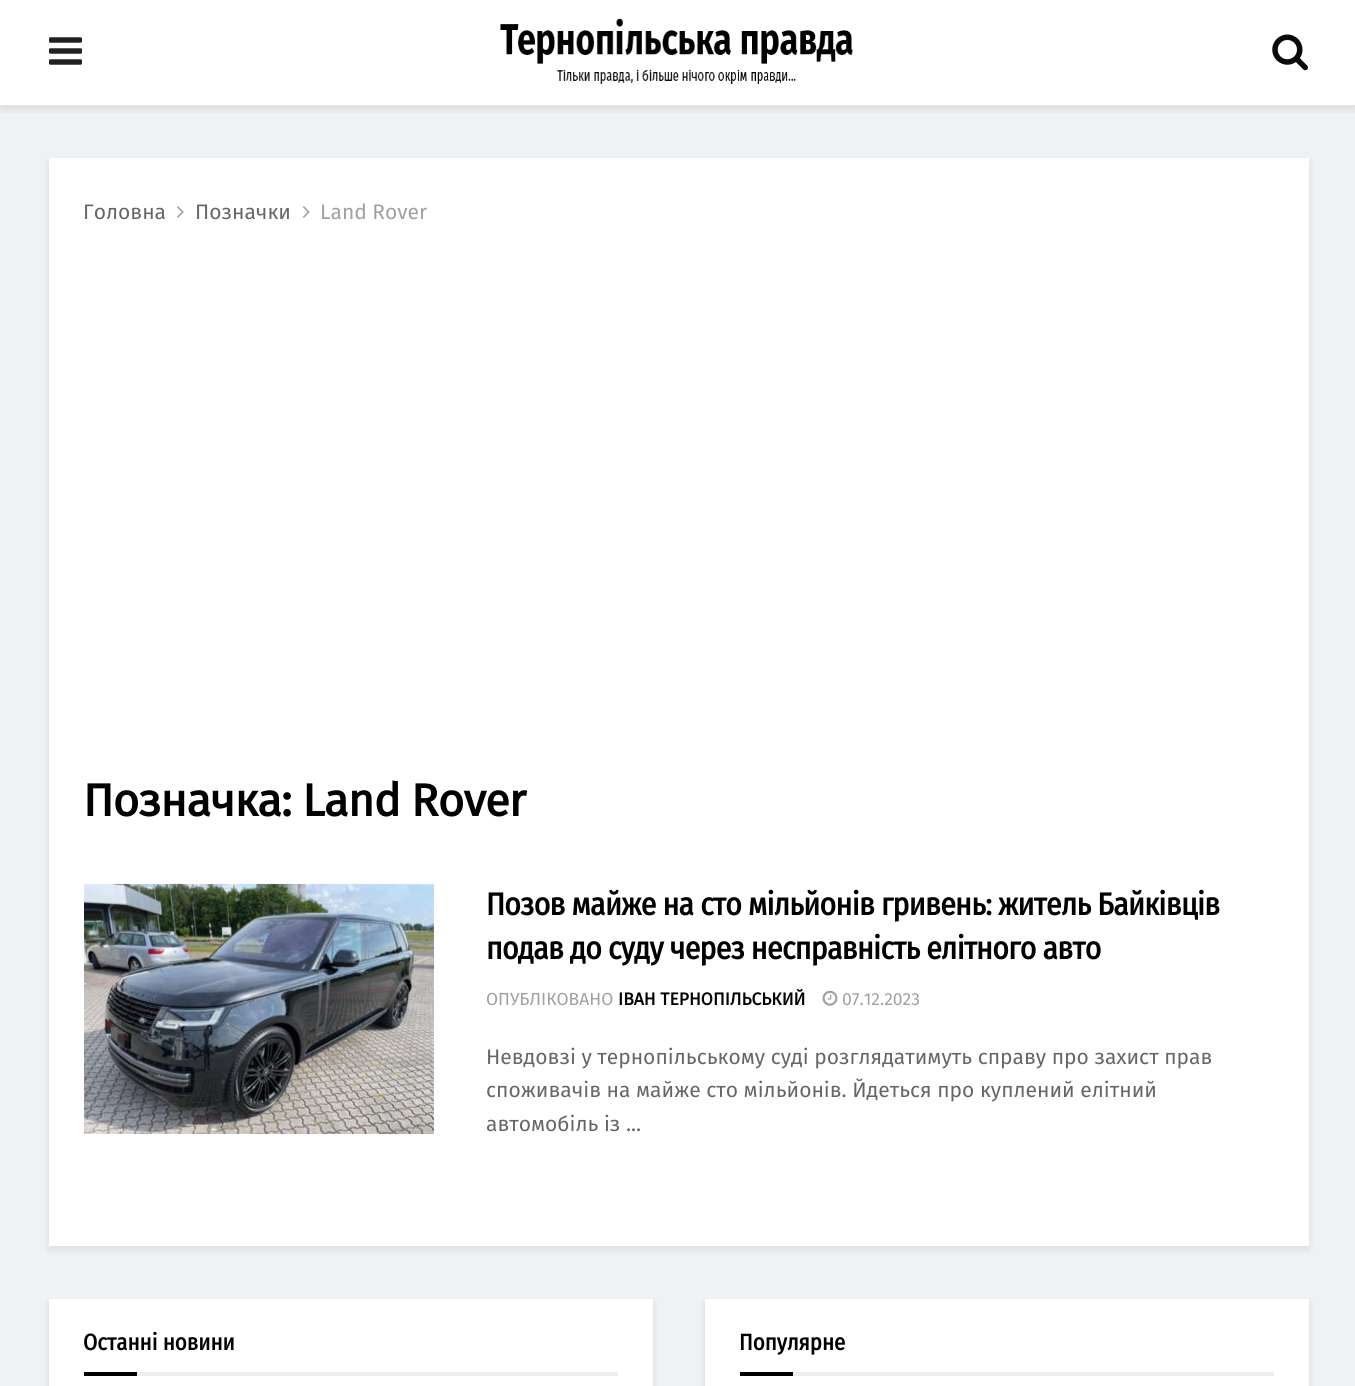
#include <cairo/cairo.h>
#include <math.h>
#include <stddef.h>

typedef struct { double x, y, w, h; unsigned color; } box_t;
static cairo_t *cr;

static void rgb(unsigned color)
{
	cairo_set_source_rgb(cr, (color >> 16) / 255.0, (color >> 8 & 255) / 255.0, (color & 255) / 255.0);
}

static void tracked(double x, double y, const char *s, double letter, double word)
{
	cairo_move_to(cr, x, y);
	while (*s) {
		char ch[5] = {0};
		int n = 0;
		do ch[n++] = *s++; while ((*s & 0xC0) == 0x80);
		cairo_show_text(cr, ch);
		cairo_rel_move_to(cr, letter + word * (*ch == ' '), 0);
	}
}

static void rrect(double x, double y, double w, double h, double r)
{
	cairo_new_sub_path(cr);
	cairo_arc(cr, x + w - r, y + h - r, r, 0, M_PI / 2);
	cairo_arc(cr, x + r, y + h - r, r, M_PI / 2, M_PI);
	cairo_arc(cr, x + r, y + r, r, M_PI, 1.5 * M_PI);
	cairo_arc(cr, x + w - r, y + r, r, 1.5 * M_PI, 2 * M_PI);
	cairo_close_path(cr);
}

static void soft_shadow(double x, double y, double w, double h, double r, double blur, double alpha)
{
	cairo_push_group_with_content(cr, CAIRO_CONTENT_ALPHA);
	cairo_set_operator(cr, CAIRO_OPERATOR_SOURCE);
	for (int i = 15; i >= -15 && fmin(w, h) + blur * i / 3 > 0; i -= 2) {
		double e = blur * i / 6;
		cairo_set_source_rgba(cr, 0, 0, 0, alpha * erfc((i - 1) / 8.5) / 2);
		rrect(x - e, y - e, w + 2 * e, h + 2 * e, fmax(0, fmin(r + e + blur * .6, fmin(w, h) / 2 + e)));
		cairo_fill(cr);
	}
	cairo_pattern_t *soft = cairo_pop_group(cr);
	cairo_mask(cr, soft);
	cairo_pattern_destroy(soft);
}

static void image(const char *path, double x, double y, double w, double h)
{
	cairo_surface_t *image = cairo_image_surface_create_from_png(path);
	cairo_save(cr);
	cairo_set_source_surface(cr, image, x, y);
	cairo_rectangle(cr, x, y, w, h);
	cairo_fill(cr);
	cairo_restore(cr);
	cairo_surface_destroy(image);
}

int main(void) {
	cairo_surface_t *surface = cairo_image_surface_create(CAIRO_FORMAT_RGB24, 1355, 1386);
	cr = cairo_create(surface);
	cairo_font_options_t *options = cairo_font_options_create();
	cairo_font_options_set_hint_metrics(options, CAIRO_HINT_METRICS_OFF);
	cairo_font_options_set_hint_style(options, CAIRO_HINT_STYLE_NONE);
	cairo_set_font_options(cr, options);
	cairo_set_miter_limit(cr, 4);
	rgb(0xffffff);
	cairo_paint(cr);
	rgb(0xf0f1f2);
	cairo_rectangle(cr, 0, 105, 1355, 1281);
	cairo_fill(cr);
	cairo_save(cr);
	cairo_rectangle(cr, 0, 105, 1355, 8);
	cairo_clip(cr);
	rgb(0x000000);
	soft_shadow(0, 4, 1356, 105, 0, 5, 0.1);
	cairo_restore(cr);
	image("img/1.png", 49, 37, 33, 28);
	image("img/2.png", 500, 18, 354, 66);
	image("img/3.png", 1272, 34, 36, 37);
	rgb(0x000000);
	soft_shadow(49, 161, 1260, 1089, 0, 3.5, 0.08);
	rgb(0xffffff);
	cairo_rectangle(cr, 49, 158, 1260, 1088);
	cairo_fill(cr);
	image("img/4.png", 177, 206, 7, 12);
	image("img/4.png", 303, 206, 7, 12);
	image("img/5.png", 84, 883, 350, 251);
	image("img/6.png", 822, 990, 16, 16);
	rgb(0x000000);
	soft_shadow(49, 1302, 604, 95, 0, 3.5, 0.08);
	{
		static const box_t items[] = {
			{49, 1299, 604, 87, 0xffffff},
			{137, 1372, 481, 4, 0xeeeeee},
			{84, 1372, 53, 4, 0x000000},
		};
		for (size_t i = 0; i < sizeof items / sizeof *items; i++) {
			rgb(items[i].color);
			cairo_rectangle(cr, items[i].x, items[i].y, items[i].w, items[i].h);
			cairo_fill(cr);
		}
	}
	rgb(0x000000);
	soft_shadow(705, 1302, 604, 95, 0, 3.5, 0.08);
	{
		static const box_t items[] = {
			{705, 1299, 604, 87, 0xffffff},
			{793, 1372, 481, 4, 0xeeeeee},
			{740, 1372, 53, 4, 0x000000},
		};
		for (size_t i = 0; i < sizeof items / sizeof *items; i++) {
			rgb(items[i].color);
			cairo_rectangle(cr, items[i].x, items[i].y, items[i].w, items[i].h);
			cairo_fill(cr);
		}
	}
	cairo_select_font_face(cr, "Fira Sans", CAIRO_FONT_SLANT_NORMAL, CAIRO_FONT_WEIGHT_NORMAL);
	cairo_set_font_size(cr, 21);
	rgb(0x666666);
	cairo_move_to(cr, 83, 219);
	cairo_show_text(cr, "Головна");
	cairo_move_to(cr, 195, 219);
	cairo_show_text(cr, "Позначки");
	rgb(0xa0a0a0);
	cairo_move_to(cr, 320, 219);
	cairo_show_text(cr, "Land Rover");
	cairo_select_font_face(cr, "Fira Sans", CAIRO_FONT_SLANT_NORMAL, CAIRO_FONT_WEIGHT_BOLD);
	cairo_set_font_size(cr, 45.5);
	rgb(0x000000);
	tracked(83, 816, "Позначка: Land Rover", -0.9, 0);
	cairo_select_font_face(cr, "Fira Sans Condensed", CAIRO_FONT_SLANT_NORMAL, CAIRO_FONT_WEIGHT_BOLD);
	cairo_set_font_size(cr, 31.5);
	tracked(486, 915, "Позов майже на сто мільйонів гривень: житель Байківців", -0.63, 0);
	tracked(486, 959, "подав до суду через несправність елітного авто", -0.63, 0);
	cairo_save(cr);
	cairo_rectangle(cr, 487, 884, 787, 257);
	cairo_clip(cr);
	cairo_select_font_face(cr, "Fira Sans", CAIRO_FONT_SLANT_NORMAL, CAIRO_FONT_WEIGHT_NORMAL);
	cairo_set_font_size(cr, 17.5);
	rgb(0xa0a0a0);
	cairo_move_to(cr, 486, 1005);
	cairo_show_text(cr, "ОПУБЛІКОВАНО");
	cairo_restore(cr);
	cairo_select_font_face(cr, "Fira Sans", CAIRO_FONT_SLANT_NORMAL, CAIRO_FONT_WEIGHT_BOLD);
	cairo_set_font_size(cr, 17.5);
	cairo_move_to(cr, 618, 1005);
	cairo_show_text(cr, "ІВАН ТЕРНОПІЛЬСЬКИЙ");
	cairo_select_font_face(cr, "Fira Sans", CAIRO_FONT_SLANT_NORMAL, CAIRO_FONT_WEIGHT_NORMAL);
	rgb(0xa0a0a0);
	cairo_move_to(cr, 842, 1005);
	cairo_show_text(cr, "07.12.2023");
	cairo_set_font_size(cr, 21);
	rgb(0x666666);
	cairo_move_to(cr, 486, 1064);
	cairo_show_text(cr, "Невдовзі у тернопільському суді розглядатимуть справу про захист прав");
	cairo_save(cr);
	cairo_rectangle(cr, 487, 884, 787, 257);
	cairo_clip(cr);
	cairo_move_to(cr, 486, 1097);
	cairo_show_text(cr, "споживачів на майже сто мільйонів. Йдеться про куплений елітний");
	cairo_move_to(cr, 486, 1131);
	cairo_show_text(cr, "автомобіль із ...");
	cairo_restore(cr);
	cairo_select_font_face(cr, "Fira Sans Condensed", CAIRO_FONT_SLANT_NORMAL, CAIRO_FONT_WEIGHT_BOLD);
	cairo_set_font_size(cr, 22.75);
	rgb(0x000000);
	cairo_move_to(cr, 83, 1350);
	cairo_show_text(cr, "Останні новини");
	cairo_move_to(cr, 739, 1350);
	cairo_show_text(cr, "Популярне");
	cairo_surface_write_to_png(surface, "page.png");
	cairo_font_options_destroy(options);
	cairo_destroy(cr);
	cairo_surface_destroy(surface);
	return 0;
}
